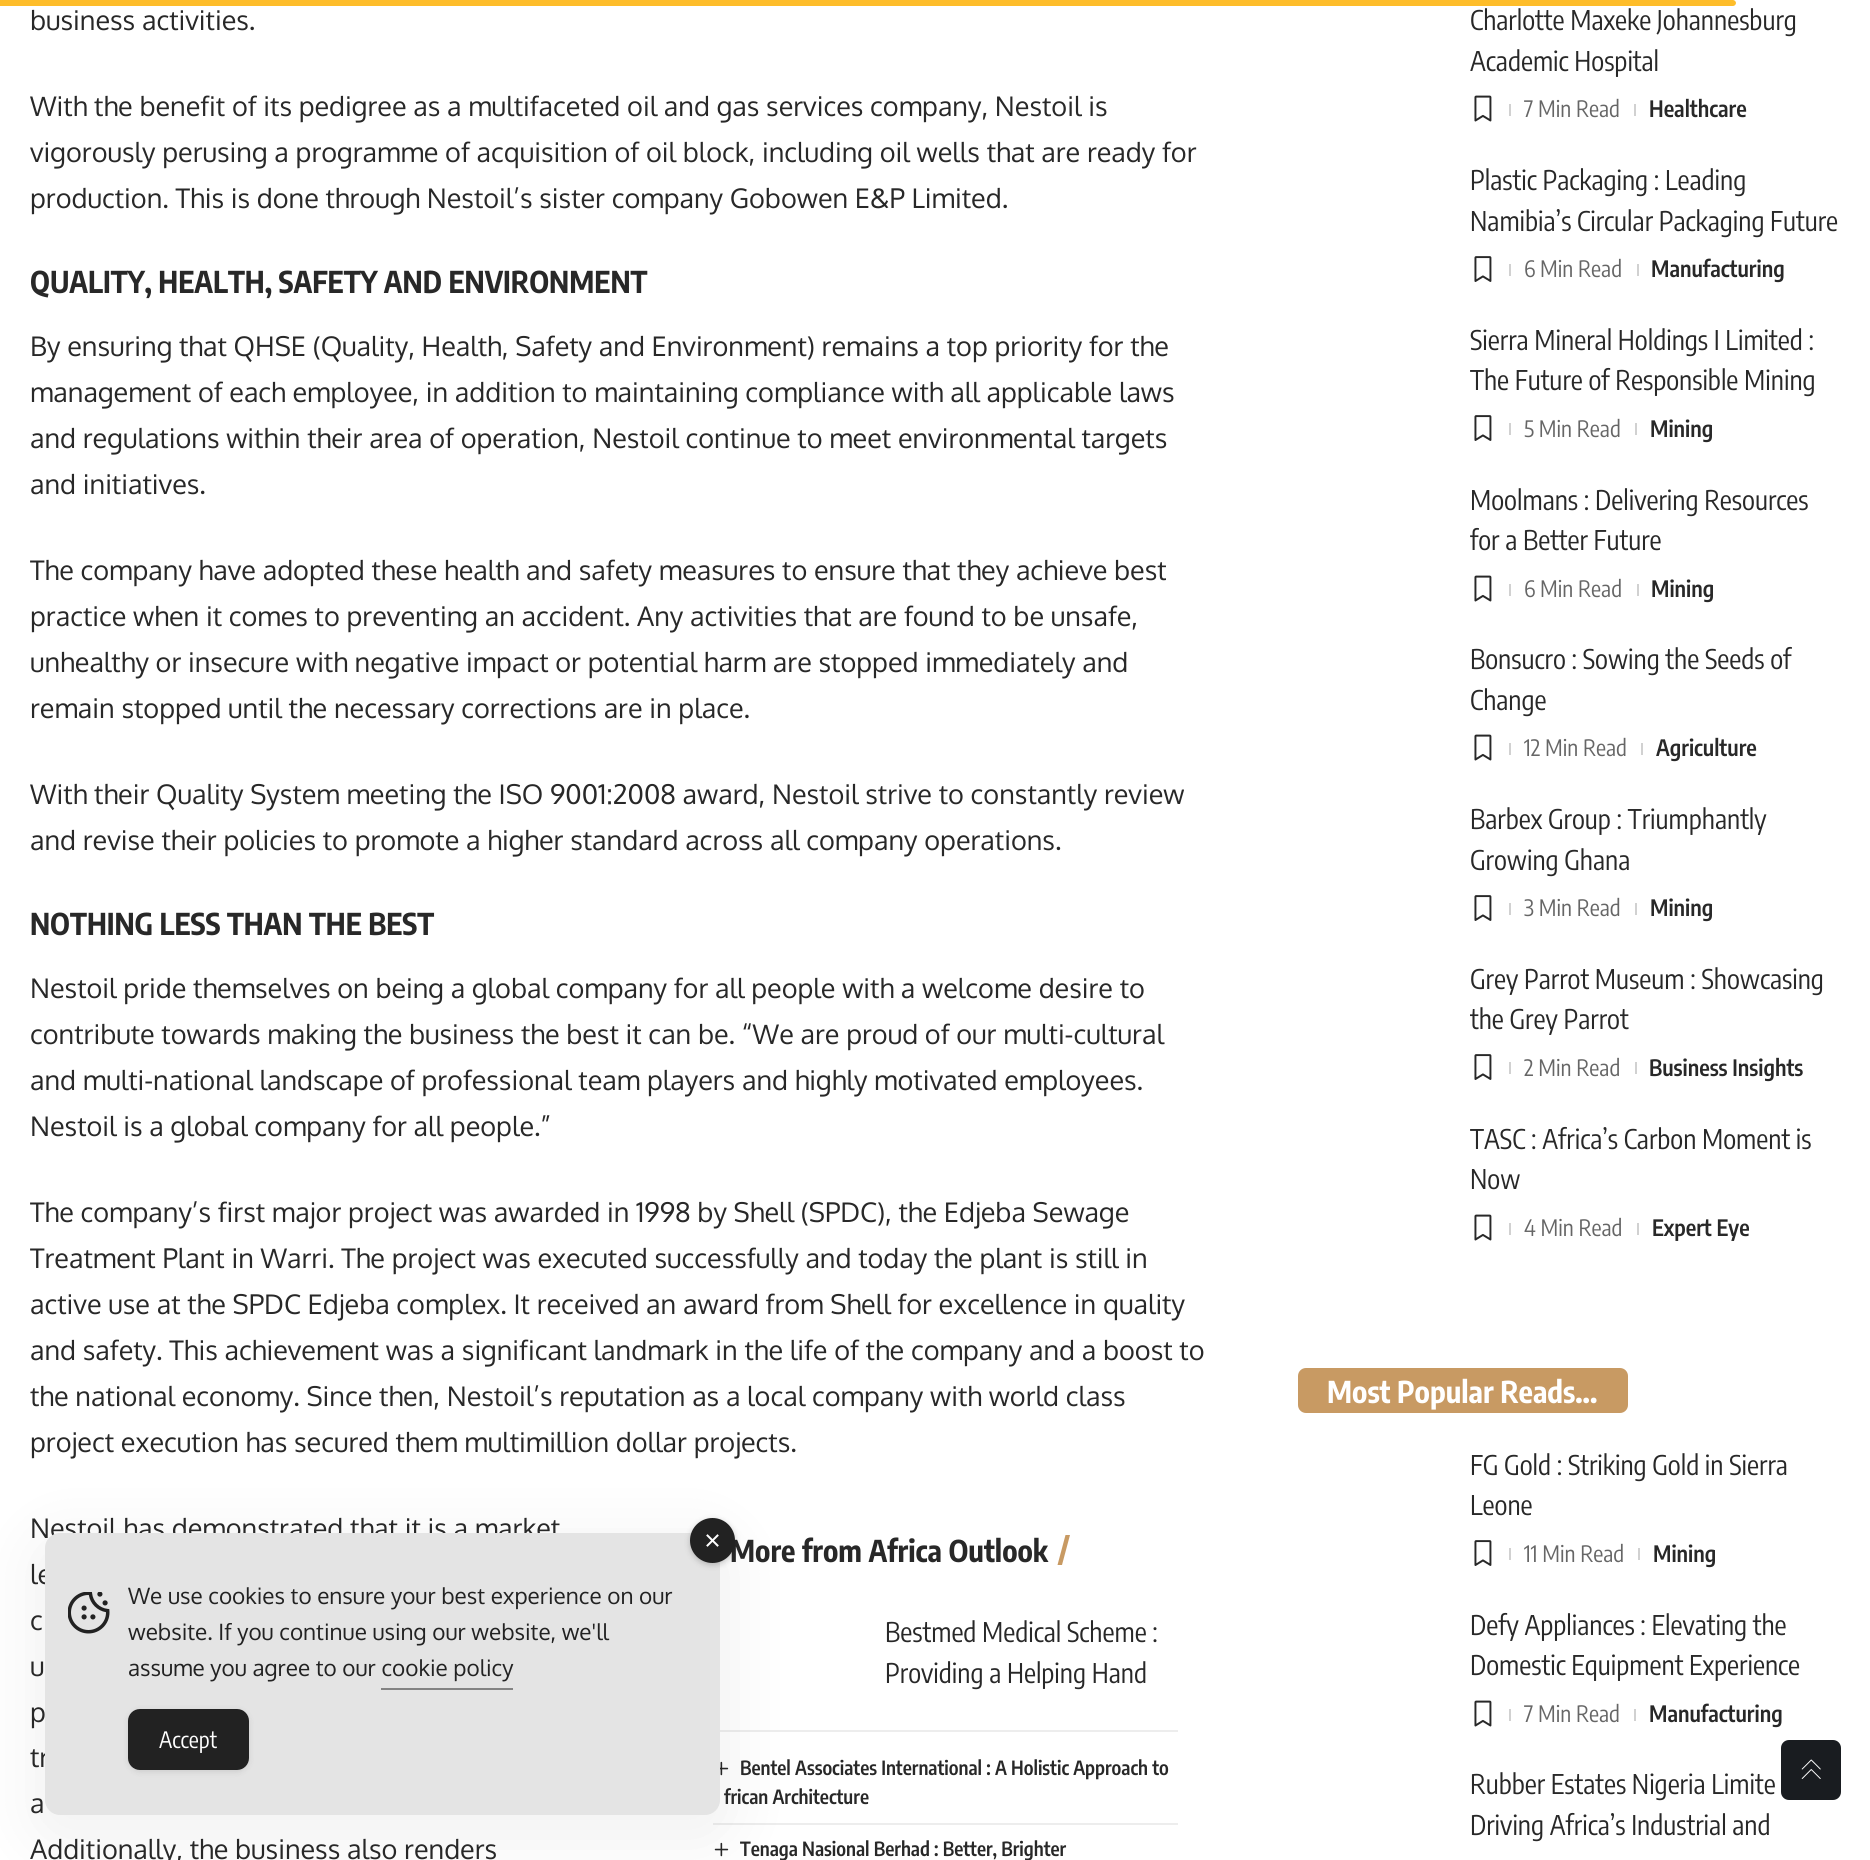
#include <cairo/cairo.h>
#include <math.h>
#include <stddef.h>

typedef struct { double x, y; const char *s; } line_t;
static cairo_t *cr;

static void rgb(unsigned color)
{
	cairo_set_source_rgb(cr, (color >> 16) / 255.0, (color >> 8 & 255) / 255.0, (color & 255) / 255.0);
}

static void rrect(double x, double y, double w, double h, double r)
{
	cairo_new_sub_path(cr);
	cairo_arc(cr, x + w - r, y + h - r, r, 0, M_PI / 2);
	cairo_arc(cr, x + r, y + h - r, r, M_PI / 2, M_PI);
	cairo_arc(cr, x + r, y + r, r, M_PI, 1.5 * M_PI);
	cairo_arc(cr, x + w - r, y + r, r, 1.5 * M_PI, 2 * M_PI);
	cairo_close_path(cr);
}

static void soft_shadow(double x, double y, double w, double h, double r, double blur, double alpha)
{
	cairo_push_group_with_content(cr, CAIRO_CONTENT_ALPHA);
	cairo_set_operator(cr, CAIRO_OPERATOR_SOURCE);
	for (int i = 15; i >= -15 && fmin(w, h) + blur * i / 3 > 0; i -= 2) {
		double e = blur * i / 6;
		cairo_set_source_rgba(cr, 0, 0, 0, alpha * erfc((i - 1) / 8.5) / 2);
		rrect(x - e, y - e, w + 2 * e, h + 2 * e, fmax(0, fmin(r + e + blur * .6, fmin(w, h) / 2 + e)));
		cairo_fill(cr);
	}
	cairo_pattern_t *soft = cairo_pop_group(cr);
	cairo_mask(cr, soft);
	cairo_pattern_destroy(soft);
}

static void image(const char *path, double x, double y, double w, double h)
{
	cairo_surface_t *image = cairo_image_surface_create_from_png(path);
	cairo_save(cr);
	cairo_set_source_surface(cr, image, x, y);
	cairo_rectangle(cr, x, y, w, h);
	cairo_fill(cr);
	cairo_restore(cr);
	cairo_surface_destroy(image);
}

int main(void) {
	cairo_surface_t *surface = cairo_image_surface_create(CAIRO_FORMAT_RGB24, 1870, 1860);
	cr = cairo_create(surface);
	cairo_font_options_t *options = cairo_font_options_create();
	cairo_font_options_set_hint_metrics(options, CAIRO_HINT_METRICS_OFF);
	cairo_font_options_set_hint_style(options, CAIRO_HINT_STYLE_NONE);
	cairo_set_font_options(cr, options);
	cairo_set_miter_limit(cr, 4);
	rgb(0xffffff);
	cairo_paint(cr);
	rgb(0xfebd2a);
	cairo_new_path(cr);
	cairo_move_to(cr, 0, 0);
	cairo_line_to(cr, 1733, 0);
	cairo_curve_to(cr, 1734.5, 0, 1736, 1.5, 1736, 3);
	cairo_curve_to(cr, 1736, 4.5, 1734.5, 6, 1733, 6);
	cairo_line_to(cr, 0, 6);
	cairo_close_path(cr);
	cairo_fill(cr);
	rgb(0xc89a63);
	cairo_new_path(cr);
	cairo_move_to(cr, 1065.5, 1535);
	cairo_line_to(cr, 1070, 1535);
	cairo_line_to(cr, 1062, 1565);
	cairo_line_to(cr, 1057.5, 1565);
	cairo_close_path(cr);
	cairo_fill(cr);
	rgb(0xededed);
	cairo_rectangle(cr, 713, 1730, 465, 2);
	cairo_fill(cr);
	cairo_rectangle(cr, 713, 1823, 465, 2);
	cairo_fill(cr);
	image("img/1.png", 720, 1761, 9, 15);
	image("img/2.png", 714, 1842, 15, 15);
	image("img/3.png", 1474, 95, 18, 27);
	rgb(0xd1d1d1);
	cairo_rectangle(cr, 1509, 104, 2, 12);
	cairo_fill(cr);
	cairo_rectangle(cr, 1634, 104, 2, 12);
	cairo_fill(cr);
	image("img/4.png", 1474, 256, 18, 26);
	cairo_rectangle(cr, 1509, 264, 2, 12);
	cairo_fill(cr);
	cairo_rectangle(cr, 1637, 264, 2, 12);
	cairo_fill(cr);
	image("img/4.png", 1474, 415, 18, 26);
	cairo_rectangle(cr, 1509, 423, 2, 12);
	cairo_fill(cr);
	cairo_rectangle(cr, 1635, 423, 2, 12);
	cairo_fill(cr);
	image("img/3.png", 1474, 575, 18, 27);
	cairo_rectangle(cr, 1509, 584, 2, 12);
	cairo_fill(cr);
	cairo_rectangle(cr, 1637, 584, 2, 12);
	cairo_fill(cr);
	image("img/3.png", 1474, 734, 18, 27);
	cairo_rectangle(cr, 1509, 743, 2, 12);
	cairo_fill(cr);
	cairo_rectangle(cr, 1641, 743, 2, 12);
	cairo_fill(cr);
	image("img/4.png", 1474, 895, 18, 26);
	cairo_rectangle(cr, 1509, 903, 2, 12);
	cairo_fill(cr);
	cairo_rectangle(cr, 1635, 903, 2, 12);
	cairo_fill(cr);
	image("img/4.png", 1474, 1054, 18, 26);
	cairo_rectangle(cr, 1509, 1062, 2, 12);
	cairo_fill(cr);
	cairo_rectangle(cr, 1635, 1062, 2, 12);
	cairo_fill(cr);
	image("img/3.png", 1474, 1214, 18, 27);
	cairo_rectangle(cr, 1509, 1223, 2, 12);
	cairo_fill(cr);
	cairo_rectangle(cr, 1637, 1223, 2, 12);
	cairo_fill(cr);
	rgb(0xc89a63);
	rrect(1298, 1368, 330, 45, 8);
	cairo_fill(cr);
	image("img/4.png", 1474, 1540, 18, 26);
	rgb(0xd1d1d1);
	cairo_rectangle(cr, 1509, 1548, 2, 12);
	cairo_fill(cr);
	cairo_rectangle(cr, 1638, 1548, 2, 12);
	cairo_fill(cr);
	image("img/3.png", 1474, 1700, 18, 27);
	cairo_rectangle(cr, 1509, 1709, 2, 12);
	cairo_fill(cr);
	cairo_rectangle(cr, 1634, 1709, 2, 12);
	cairo_fill(cr);
	rgb(0x000000);
	soft_shadow(30, 1533, 705, 312, 30, 30, 0.05);
	rgb(0x191c20);
	rrect(1781, 1740, 60, 60, 8);
	cairo_fill(cr);
	image("img/7.png", 1801, 1759, 20, 20);
	cairo_select_font_face(cr, "Oxygen", CAIRO_FONT_SLANT_NORMAL, CAIRO_FONT_WEIGHT_NORMAL);
	cairo_set_font_size(cr, 27);
	rgb(0x282828);
	{
		static const line_t items[] = {
			{30, 30, "business activities."},
			{30, 116, "With the benefit of its pedigree as a multifaceted oil and gas services company, Nestoil is"},
			{30, 162, "vigorously perusing a programme of acquisition of oil block, including oil wells that are ready for"},
			{30, 208, "production. This is done through Nestoil’s sister company Gobowen E&P Limited."},
		};
		for (size_t i = 0; i < sizeof items / sizeof *items; i++) {
			cairo_move_to(cr, items[i].x, items[i].y);
			cairo_show_text(cr, items[i].s);
		}
	}
	cairo_select_font_face(cr, "Encode Sans Condensed", CAIRO_FONT_SLANT_NORMAL, CAIRO_FONT_WEIGHT_BOLD);
	cairo_set_font_size(cr, 30);
	cairo_move_to(cr, 30, 293);
	cairo_show_text(cr, "QUALITY, HEALTH, SAFETY AND ENVIRONMENT");
	cairo_select_font_face(cr, "Oxygen", CAIRO_FONT_SLANT_NORMAL, CAIRO_FONT_WEIGHT_NORMAL);
	cairo_set_font_size(cr, 27);
	{
		static const line_t items[] = {
			{30, 356, "By ensuring that QHSE (Quality, Health, Safety and Environment) remains a top priority for the"},
			{30, 402, "management of each employee, in addition to maintaining compliance with all applicable laws"},
			{30, 448, "and regulations within their area of operation, Nestoil continue to meet environmental targets"},
			{30, 494, "and initiatives."},
			{30, 580, "The company have adopted these health and safety measures to ensure that they achieve best"},
			{30, 626, "practice when it comes to preventing an accident. Any activities that are found to be unsafe,"},
			{30, 672, "unhealthy or insecure with negative impact or potential harm are stopped immediately and"},
			{30, 718, "remain stopped until the necessary corrections are in place."},
			{30, 804, "With their Quality System meeting the ISO 9001:2008 award, Nestoil strive to constantly review"},
			{30, 850, "and revise their policies to promote a higher standard across all company operations."},
		};
		for (size_t i = 0; i < sizeof items / sizeof *items; i++) {
			cairo_move_to(cr, items[i].x, items[i].y);
			cairo_show_text(cr, items[i].s);
		}
	}
	cairo_select_font_face(cr, "Encode Sans Condensed", CAIRO_FONT_SLANT_NORMAL, CAIRO_FONT_WEIGHT_BOLD);
	cairo_set_font_size(cr, 30);
	cairo_move_to(cr, 30, 935);
	cairo_show_text(cr, "NOTHING LESS THAN THE BEST");
	cairo_select_font_face(cr, "Oxygen", CAIRO_FONT_SLANT_NORMAL, CAIRO_FONT_WEIGHT_NORMAL);
	cairo_set_font_size(cr, 27);
	{
		static const line_t items[] = {
			{30, 998, "Nestoil pride themselves on being a global company for all people with a welcome desire to"},
			{30, 1044, "contribute towards making the business the best it can be. “We are proud of our multi-cultural"},
			{30, 1090, "and multi-national landscape of professional team players and highly motivated employees."},
			{30, 1136, "Nestoil is a global company for all people.”"},
			{30, 1222, "The company’s first major project was awarded in 1998 by Shell (SPDC), the Edjeba Sewage"},
			{30, 1268, "Treatment Plant in Warri. The project was executed successfully and today the plant is still in"},
			{30, 1314, "active use at the SPDC Edjeba complex. It received an award from Shell for excellence in quality"},
			{30, 1360, "and safety. This achievement was a significant landmark in the life of the company and a boost to"},
			{30, 1406, "the national economy. Since then, Nestoil’s reputation as a local company with world class"},
			{30, 1452, "project execution has secured them multimillion dollar projects."},
			{30, 1538, "Nestoil has demonstrated that it is a market"},
			{30, 1584, "le"},
			{30, 1630, "c"},
			{30, 1676, "u"},
			{30, 1722, "p"},
			{30, 1767, "tr"},
			{30, 1813, "a"},
			{30, 1859, "Additionally, the business also renders"},
		};
		for (size_t i = 0; i < sizeof items / sizeof *items; i++) {
			cairo_move_to(cr, items[i].x, items[i].y);
			cairo_show_text(cr, items[i].s);
		}
	}
	cairo_select_font_face(cr, "Encode Sans Condensed", CAIRO_FONT_SLANT_NORMAL, CAIRO_FONT_WEIGHT_BOLD);
	cairo_set_font_size(cr, 30);
	cairo_move_to(cr, 730, 1562);
	cairo_show_text(cr, "More from Africa Outlook");
	cairo_select_font_face(cr, "Encode Sans Condensed", CAIRO_FONT_SLANT_NORMAL, CAIRO_FONT_WEIGHT_NORMAL);
	cairo_set_font_size(cr, 27);
	cairo_move_to(cr, 885, 1642);
	cairo_show_text(cr, "Bestmed Medical Scheme :");
	cairo_move_to(cr, 885, 1683);
	cairo_show_text(cr, "Providing a Helping Hand");
	cairo_select_font_face(cr, "Encode Sans Condensed SemiBold", CAIRO_FONT_SLANT_NORMAL, CAIRO_FONT_WEIGHT_NORMAL);
	cairo_set_font_size(cr, 19.5);
	{
		static const line_t items[] = {
			{740, 1775, "Bentel Associates International : A Holistic Approach to"},
			{724, 1804, "frican Architecture"},
			{740, 1856, "Tenaga Nasional Berhad : Better, Brighter"},
		};
		for (size_t i = 0; i < sizeof items / sizeof *items; i++) {
			cairo_move_to(cr, items[i].x, items[i].y);
			cairo_show_text(cr, items[i].s);
		}
	}
	cairo_select_font_face(cr, "Encode Sans Condensed", CAIRO_FONT_SLANT_NORMAL, CAIRO_FONT_WEIGHT_NORMAL);
	cairo_set_font_size(cr, 27);
	cairo_move_to(cr, 1470, 30);
	cairo_show_text(cr, "Charlotte Maxeke Johannesburg");
	cairo_move_to(cr, 1470, 71);
	cairo_show_text(cr, "Academic Hospital");
	cairo_set_font_size(cr, 22.5);
	rgb(0x666666);
	cairo_move_to(cr, 1524, 117);
	cairo_show_text(cr, "7 Min Read");
	cairo_select_font_face(cr, "Encode Sans Condensed SemiBold", CAIRO_FONT_SLANT_NORMAL, CAIRO_FONT_WEIGHT_NORMAL);
	rgb(0x282828);
	cairo_move_to(cr, 1649, 117);
	cairo_show_text(cr, "Healthcare");
	cairo_select_font_face(cr, "Encode Sans Condensed", CAIRO_FONT_SLANT_NORMAL, CAIRO_FONT_WEIGHT_NORMAL);
	cairo_set_font_size(cr, 27);
	cairo_move_to(cr, 1470, 190);
	cairo_show_text(cr, "Plastic Packaging : Leading");
	cairo_move_to(cr, 1470, 231);
	cairo_show_text(cr, "Namibia’s Circular Packaging Future");
	cairo_set_font_size(cr, 22.5);
	rgb(0x666666);
	cairo_move_to(cr, 1524, 277);
	cairo_show_text(cr, "6 Min Read");
	cairo_select_font_face(cr, "Encode Sans Condensed SemiBold", CAIRO_FONT_SLANT_NORMAL, CAIRO_FONT_WEIGHT_NORMAL);
	rgb(0x282828);
	cairo_move_to(cr, 1651, 277);
	cairo_show_text(cr, "Manufacturing");
	cairo_select_font_face(cr, "Encode Sans Condensed", CAIRO_FONT_SLANT_NORMAL, CAIRO_FONT_WEIGHT_NORMAL);
	cairo_set_font_size(cr, 27);
	cairo_move_to(cr, 1470, 350);
	cairo_show_text(cr, "Sierra Mineral Holdings I Limited :");
	cairo_move_to(cr, 1470, 390);
	cairo_show_text(cr, "The Future of Responsible Mining");
	cairo_set_font_size(cr, 22.5);
	rgb(0x666666);
	cairo_move_to(cr, 1524, 437);
	cairo_show_text(cr, "5 Min Read");
	cairo_select_font_face(cr, "Encode Sans Condensed SemiBold", CAIRO_FONT_SLANT_NORMAL, CAIRO_FONT_WEIGHT_NORMAL);
	rgb(0x282828);
	cairo_move_to(cr, 1650, 437);
	cairo_show_text(cr, "Mining");
	cairo_select_font_face(cr, "Encode Sans Condensed", CAIRO_FONT_SLANT_NORMAL, CAIRO_FONT_WEIGHT_NORMAL);
	cairo_set_font_size(cr, 27);
	cairo_move_to(cr, 1470, 510);
	cairo_show_text(cr, "Moolmans : Delivering Resources");
	cairo_move_to(cr, 1470, 550);
	cairo_show_text(cr, "for a Better Future");
	cairo_set_font_size(cr, 22.5);
	rgb(0x666666);
	cairo_move_to(cr, 1524, 597);
	cairo_show_text(cr, "6 Min Read");
	cairo_select_font_face(cr, "Encode Sans Condensed SemiBold", CAIRO_FONT_SLANT_NORMAL, CAIRO_FONT_WEIGHT_NORMAL);
	rgb(0x282828);
	cairo_move_to(cr, 1651, 597);
	cairo_show_text(cr, "Mining");
	cairo_select_font_face(cr, "Encode Sans Condensed", CAIRO_FONT_SLANT_NORMAL, CAIRO_FONT_WEIGHT_NORMAL);
	cairo_set_font_size(cr, 27);
	cairo_move_to(cr, 1470, 669);
	cairo_show_text(cr, "Bonsucro : Sowing the Seeds of");
	cairo_move_to(cr, 1470, 710);
	cairo_show_text(cr, "Change");
	cairo_set_font_size(cr, 22.5);
	rgb(0x666666);
	cairo_move_to(cr, 1524, 756);
	cairo_show_text(cr, "12 Min Read");
	cairo_select_font_face(cr, "Encode Sans Condensed SemiBold", CAIRO_FONT_SLANT_NORMAL, CAIRO_FONT_WEIGHT_NORMAL);
	rgb(0x282828);
	cairo_move_to(cr, 1656, 756);
	cairo_show_text(cr, "Agriculture");
	cairo_select_font_face(cr, "Encode Sans Condensed", CAIRO_FONT_SLANT_NORMAL, CAIRO_FONT_WEIGHT_NORMAL);
	cairo_set_font_size(cr, 27);
	cairo_move_to(cr, 1470, 829);
	cairo_show_text(cr, "Barbex Group : Triumphantly");
	cairo_move_to(cr, 1470, 870);
	cairo_show_text(cr, "Growing Ghana");
	cairo_set_font_size(cr, 22.5);
	rgb(0x666666);
	cairo_move_to(cr, 1524, 916);
	cairo_show_text(cr, "3 Min Read");
	cairo_select_font_face(cr, "Encode Sans Condensed SemiBold", CAIRO_FONT_SLANT_NORMAL, CAIRO_FONT_WEIGHT_NORMAL);
	rgb(0x282828);
	cairo_move_to(cr, 1650, 916);
	cairo_show_text(cr, "Mining");
	cairo_select_font_face(cr, "Encode Sans Condensed", CAIRO_FONT_SLANT_NORMAL, CAIRO_FONT_WEIGHT_NORMAL);
	cairo_set_font_size(cr, 27);
	cairo_move_to(cr, 1470, 989);
	cairo_show_text(cr, "Grey Parrot Museum : Showcasing");
	cairo_move_to(cr, 1470, 1029);
	cairo_show_text(cr, "the Grey Parrot");
	cairo_set_font_size(cr, 22.5);
	rgb(0x666666);
	cairo_move_to(cr, 1524, 1076);
	cairo_show_text(cr, "2 Min Read");
	cairo_select_font_face(cr, "Encode Sans Condensed SemiBold", CAIRO_FONT_SLANT_NORMAL, CAIRO_FONT_WEIGHT_NORMAL);
	rgb(0x282828);
	cairo_move_to(cr, 1649, 1076);
	cairo_show_text(cr, "Business Insights");
	cairo_select_font_face(cr, "Encode Sans Condensed", CAIRO_FONT_SLANT_NORMAL, CAIRO_FONT_WEIGHT_NORMAL);
	cairo_set_font_size(cr, 27);
	cairo_move_to(cr, 1470, 1149);
	cairo_show_text(cr, "TASC : Africa’s Carbon Moment is");
	cairo_move_to(cr, 1470, 1189);
	cairo_show_text(cr, "Now");
	cairo_set_font_size(cr, 22.5);
	rgb(0x666666);
	cairo_move_to(cr, 1524, 1236);
	cairo_show_text(cr, "4 Min Read");
	cairo_select_font_face(cr, "Encode Sans Condensed SemiBold", CAIRO_FONT_SLANT_NORMAL, CAIRO_FONT_WEIGHT_NORMAL);
	rgb(0x282828);
	cairo_move_to(cr, 1652, 1236);
	cairo_show_text(cr, "Expert Eye");
	cairo_select_font_face(cr, "Encode Sans Condensed", CAIRO_FONT_SLANT_NORMAL, CAIRO_FONT_WEIGHT_BOLD);
	cairo_set_font_size(cr, 30);
	rgb(0xffffff);
	cairo_move_to(cr, 1327, 1403);
	cairo_show_text(cr, "Most Popular Reads...");
	cairo_select_font_face(cr, "Encode Sans Condensed", CAIRO_FONT_SLANT_NORMAL, CAIRO_FONT_WEIGHT_NORMAL);
	cairo_set_font_size(cr, 27);
	rgb(0x282828);
	cairo_move_to(cr, 1470, 1475);
	cairo_show_text(cr, "FG Gold : Striking Gold in Sierra");
	cairo_move_to(cr, 1470, 1515);
	cairo_show_text(cr, "Leone");
	cairo_set_font_size(cr, 22.5);
	rgb(0x666666);
	cairo_move_to(cr, 1524, 1562);
	cairo_show_text(cr, "11 Min Read");
	cairo_select_font_face(cr, "Encode Sans Condensed SemiBold", CAIRO_FONT_SLANT_NORMAL, CAIRO_FONT_WEIGHT_NORMAL);
	rgb(0x282828);
	cairo_move_to(cr, 1653, 1562);
	cairo_show_text(cr, "Mining");
	cairo_select_font_face(cr, "Encode Sans Condensed", CAIRO_FONT_SLANT_NORMAL, CAIRO_FONT_WEIGHT_NORMAL);
	cairo_set_font_size(cr, 27);
	cairo_move_to(cr, 1470, 1635);
	cairo_show_text(cr, "Defy Appliances : Elevating the");
	cairo_move_to(cr, 1470, 1675);
	cairo_show_text(cr, "Domestic Equipment Experience");
	cairo_set_font_size(cr, 22.5);
	rgb(0x666666);
	cairo_move_to(cr, 1524, 1722);
	cairo_show_text(cr, "7 Min Read");
	cairo_select_font_face(cr, "Encode Sans Condensed SemiBold", CAIRO_FONT_SLANT_NORMAL, CAIRO_FONT_WEIGHT_NORMAL);
	rgb(0x282828);
	cairo_move_to(cr, 1649, 1722);
	cairo_show_text(cr, "Manufacturing");
	cairo_select_font_face(cr, "Encode Sans Condensed", CAIRO_FONT_SLANT_NORMAL, CAIRO_FONT_WEIGHT_NORMAL);
	cairo_set_font_size(cr, 27);
	cairo_move_to(cr, 1470, 1794);
	cairo_show_text(cr, "Rubber Estates Nigeria Limite");
	cairo_move_to(cr, 1470, 1835);
	cairo_show_text(cr, "Driving Africa’s Industrial and");
	rgb(0xe4e4e4);
	rrect(45, 1533, 675, 282, 15);
	cairo_fill(cr);
	rgb(0x000000);
	soft_shadow(690, 1520, 45, 45, 22.5, 3, 0.2);
	rgb(0x222222);
	cairo_arc(cr, 712.5, 1540.5, 22.5, 0, 2 * M_PI);
	cairo_fill(cr);
	image("img/5.png", 706, 1534, 13, 13);
	image("img/6.png", 68, 1592, 42, 42);
	cairo_select_font_face(cr, "Oxygen", CAIRO_FONT_SLANT_NORMAL, CAIRO_FONT_WEIGHT_NORMAL);
	cairo_set_font_size(cr, 22.5);
	{
		static const line_t items[] = {
			{128, 1604, "We use cookies to ensure your best experience on our"},
			{128, 1640, "website. If you continue using our website, we'll"},
			{128, 1676, "assume you agree to our cookie policy"},
		};
		for (size_t i = 0; i < sizeof items / sizeof *items; i++) {
			cairo_move_to(cr, items[i].x, items[i].y);
			cairo_show_text(cr, items[i].s);
		}
	}
	rgb(0x838383);
	cairo_rectangle(cr, 381, 1688, 132, 2);
	cairo_fill(cr);
	rgb(0x000000);
	soft_shadow(128, 1710, 121, 62, 12, 3, 0.1);
	rgb(0x222222);
	rrect(129, 1710, 119, 59, 11);
	cairo_fill_preserve(cr);
	cairo_stroke(cr);
	cairo_select_font_face(cr, "Encode Sans Condensed", CAIRO_FONT_SLANT_NORMAL, CAIRO_FONT_WEIGHT_NORMAL);
	rgb(0xffffff);
	cairo_move_to(cr, 159, 1748);
	cairo_show_text(cr, "Accept");
	cairo_surface_write_to_png(surface, "page.png");
	cairo_font_options_destroy(options);
	cairo_destroy(cr);
	cairo_surface_destroy(surface);
	return 0;
}
